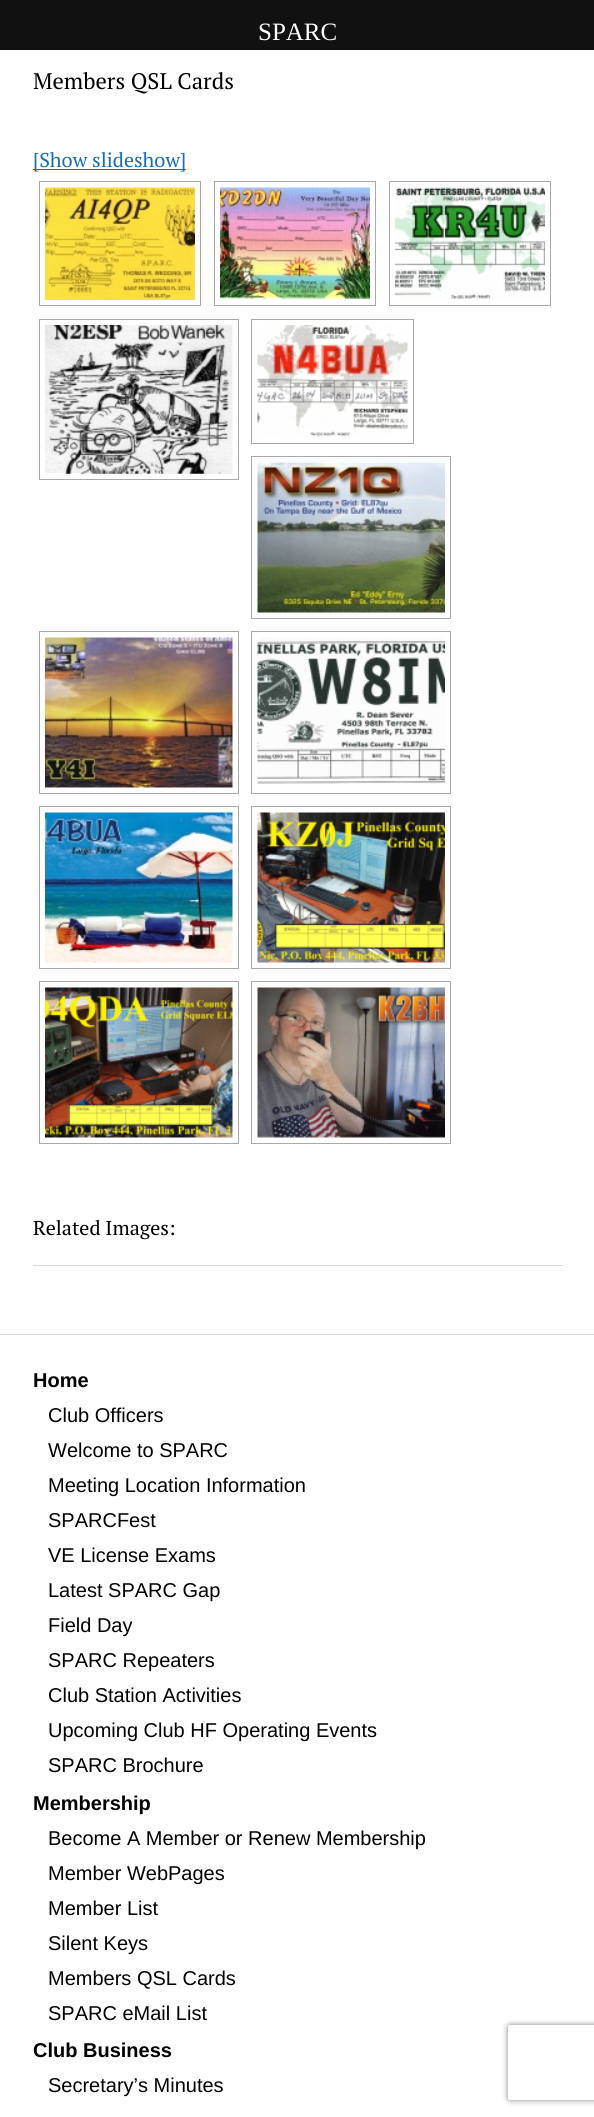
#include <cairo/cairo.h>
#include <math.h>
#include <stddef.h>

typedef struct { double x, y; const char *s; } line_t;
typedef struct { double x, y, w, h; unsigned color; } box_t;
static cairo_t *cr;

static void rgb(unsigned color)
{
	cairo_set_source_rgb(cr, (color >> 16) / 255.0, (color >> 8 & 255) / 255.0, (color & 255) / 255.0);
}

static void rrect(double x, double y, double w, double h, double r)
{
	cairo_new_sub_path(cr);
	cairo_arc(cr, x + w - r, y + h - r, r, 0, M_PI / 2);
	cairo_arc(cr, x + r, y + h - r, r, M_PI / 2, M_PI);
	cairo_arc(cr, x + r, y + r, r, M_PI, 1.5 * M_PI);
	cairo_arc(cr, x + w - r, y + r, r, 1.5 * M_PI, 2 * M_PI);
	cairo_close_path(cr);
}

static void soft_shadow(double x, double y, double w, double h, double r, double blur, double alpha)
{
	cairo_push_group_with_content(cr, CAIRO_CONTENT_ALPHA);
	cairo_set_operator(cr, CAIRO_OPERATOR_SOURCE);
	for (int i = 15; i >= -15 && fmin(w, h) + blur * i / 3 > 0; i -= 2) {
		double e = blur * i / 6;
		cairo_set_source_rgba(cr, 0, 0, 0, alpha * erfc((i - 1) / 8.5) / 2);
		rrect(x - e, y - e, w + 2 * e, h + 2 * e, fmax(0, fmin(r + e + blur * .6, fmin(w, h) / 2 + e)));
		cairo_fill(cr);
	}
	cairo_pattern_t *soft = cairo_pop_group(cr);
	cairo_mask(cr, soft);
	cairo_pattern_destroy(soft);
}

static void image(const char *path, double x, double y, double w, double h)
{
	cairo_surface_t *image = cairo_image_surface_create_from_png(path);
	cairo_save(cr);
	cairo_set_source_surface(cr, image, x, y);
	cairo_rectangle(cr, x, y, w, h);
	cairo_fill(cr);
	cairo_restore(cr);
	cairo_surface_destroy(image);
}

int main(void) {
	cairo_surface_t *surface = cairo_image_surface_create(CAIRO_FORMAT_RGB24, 594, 2117);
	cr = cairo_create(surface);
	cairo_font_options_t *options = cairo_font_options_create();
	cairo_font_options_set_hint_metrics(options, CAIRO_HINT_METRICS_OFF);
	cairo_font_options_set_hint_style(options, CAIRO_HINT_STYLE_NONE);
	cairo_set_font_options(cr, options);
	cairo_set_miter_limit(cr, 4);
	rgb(0xffffff);
	cairo_paint(cr);
	{
		static const box_t items[] = {
			{0, 0, 594, 50, 0x111111},
			{33, 1265, 530, 1, 0xdcdcdc},
			{33, 169, 153, 1, 0x176db3},
		};
		for (size_t i = 0; i < sizeof items / sizeof *items; i++) {
			rgb(items[i].color);
			cairo_rectangle(cr, items[i].x, items[i].y, items[i].w, items[i].h);
			cairo_fill(cr);
		}
	}
	cairo_rectangle(cr, 39.5, 181.5, 161, 124);
	rgb(0xa9a9a9);
	cairo_set_line_width(cr, 1);
	cairo_stroke(cr);
	image("img/1.png", 45, 187, 150, 113);
	cairo_rectangle(cr, 214.5, 181.5, 161, 124);
	cairo_stroke(cr);
	image("img/2.png", 220, 187, 150, 113);
	cairo_rectangle(cr, 389.5, 181.5, 161, 124);
	cairo_stroke(cr);
	image("img/3.png", 395, 187, 150, 113);
	cairo_rectangle(cr, 39.5, 319.5, 199, 160);
	cairo_stroke(cr);
	image("img/4.png", 45, 325, 188, 149);
	cairo_rectangle(cr, 251.5, 319.5, 162, 124);
	cairo_stroke(cr);
	image("img/5.png", 257, 325, 151, 112);
	cairo_rectangle(cr, 251.5, 456.5, 199, 162);
	cairo_stroke(cr);
	image("img/6.png", 257, 462, 188, 151);
	cairo_rectangle(cr, 39.5, 631.5, 199, 162);
	cairo_stroke(cr);
	image("img/7.png", 45, 637, 188, 151);
	cairo_rectangle(cr, 251.5, 631.5, 199, 162);
	cairo_stroke(cr);
	image("img/8.png", 257, 637, 188, 147);
	cairo_rectangle(cr, 39.5, 806.5, 199, 162);
	cairo_stroke(cr);
	image("img/9.png", 45, 812, 188, 151);
	cairo_rectangle(cr, 251.5, 806.5, 199, 162);
	cairo_stroke(cr);
	image("img/10.png", 257, 812, 188, 151);
	cairo_rectangle(cr, 39.5, 981.5, 199, 162);
	cairo_stroke(cr);
	image("img/11.png", 45, 987, 188, 151);
	cairo_rectangle(cr, 251.5, 981.5, 199, 162);
	cairo_stroke(cr);
	image("img/12.png", 257, 987, 188, 151);
	rgb(0xdcdcdc);
	cairo_rectangle(cr, 0, 1334, 594, 1);
	cairo_fill(cr);
	cairo_save(cr);
	cairo_set_fill_rule(cr, CAIRO_FILL_RULE_EVEN_ODD);
	cairo_new_path(cr);
	cairo_move_to(cr, 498, 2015);
	cairo_line_to(cr, 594, 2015);
	cairo_line_to(cr, 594, 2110);
	cairo_line_to(cr, 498, 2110);
	cairo_close_path(cr);
	cairo_move_to(cr, 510.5, 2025);
	cairo_line_to(cr, 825.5, 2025);
	cairo_curve_to(cr, 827, 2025, 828, 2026, 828, 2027.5);
	cairo_line_to(cr, 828, 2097.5);
	cairo_curve_to(cr, 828, 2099, 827, 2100, 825.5, 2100);
	cairo_line_to(cr, 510.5, 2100);
	cairo_curve_to(cr, 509, 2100, 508, 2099, 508, 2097.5);
	cairo_line_to(cr, 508, 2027.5);
	cairo_curve_to(cr, 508, 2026, 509, 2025, 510.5, 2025);
	cairo_close_path(cr);
	cairo_clip(cr);
	rgb(0x808080);
	soft_shadow(508, 2025, 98, 75, 2.5, 3, 1);
	cairo_restore(cr);
	cairo_select_font_face(cr, "Liberation Serif", CAIRO_FONT_SLANT_NORMAL, CAIRO_FONT_WEIGHT_NORMAL);
	cairo_set_font_size(cr, 25);
	rgb(0xffffff);
	cairo_move_to(cr, 258, 40);
	cairo_show_text(cr, "SPARC");
	cairo_select_font_face(cr, "PT Serif", CAIRO_FONT_SLANT_NORMAL, CAIRO_FONT_WEIGHT_NORMAL);
	cairo_set_font_size(cr, 22.5);
	rgb(0x000000);
	cairo_move_to(cr, 33, 89);
	cairo_show_text(cr, "Members QSL Cards");
	cairo_set_font_size(cr, 20);
	rgb(0x176db3);
	cairo_move_to(cr, 33, 167);
	cairo_show_text(cr, "[Show slideshow]");
	rgb(0x000000);
	cairo_move_to(cr, 33, 1235);
	cairo_show_text(cr, "Related Images:");
	cairo_select_font_face(cr, "Liberation Sans", CAIRO_FONT_SLANT_NORMAL, CAIRO_FONT_WEIGHT_BOLD);
	cairo_move_to(cr, 33, 1387);
	cairo_show_text(cr, "Home");
	cairo_select_font_face(cr, "Liberation Sans", CAIRO_FONT_SLANT_NORMAL, CAIRO_FONT_WEIGHT_NORMAL);
	{
		static const line_t items[] = {
			{48, 1422, "Club Officers"},
			{48, 1457, "Welcome to SPARC"},
			{48, 1492, "Meeting Location Information"},
			{48, 1527, "SPARCFest"},
			{48, 1562, "VE License Exams"},
			{48, 1597, "Latest SPARC Gap"},
			{48, 1632, "Field Day"},
			{48, 1667, "SPARC Repeaters"},
			{48, 1702, "Club Station Activities"},
			{48, 1737, "Upcoming Club HF Operating Events"},
			{48, 1772, "SPARC Brochure"},
		};
		for (size_t i = 0; i < sizeof items / sizeof *items; i++) {
			cairo_move_to(cr, items[i].x, items[i].y);
			cairo_show_text(cr, items[i].s);
		}
	}
	cairo_select_font_face(cr, "Liberation Sans", CAIRO_FONT_SLANT_NORMAL, CAIRO_FONT_WEIGHT_BOLD);
	cairo_move_to(cr, 33, 1810);
	cairo_show_text(cr, "Membership");
	cairo_select_font_face(cr, "Liberation Sans", CAIRO_FONT_SLANT_NORMAL, CAIRO_FONT_WEIGHT_NORMAL);
	{
		static const line_t items[] = {
			{48, 1845, "Become A Member or Renew Membership"},
			{48, 1880, "Member WebPages"},
			{48, 1915, "Member List"},
			{48, 1950, "Silent Keys"},
			{48, 1985, "Members QSL Cards"},
			{48, 2020, "SPARC eMail List"},
		};
		for (size_t i = 0; i < sizeof items / sizeof *items; i++) {
			cairo_move_to(cr, items[i].x, items[i].y);
			cairo_show_text(cr, items[i].s);
		}
	}
	cairo_select_font_face(cr, "Liberation Sans", CAIRO_FONT_SLANT_NORMAL, CAIRO_FONT_WEIGHT_BOLD);
	cairo_move_to(cr, 33, 2057);
	cairo_show_text(cr, "Club Business");
	cairo_select_font_face(cr, "Liberation Sans", CAIRO_FONT_SLANT_NORMAL, CAIRO_FONT_WEIGHT_NORMAL);
	cairo_move_to(cr, 48, 2092);
	cairo_show_text(cr, "Secretary’s Minutes");
	cairo_surface_write_to_png(surface, "page.png");
	cairo_font_options_destroy(options);
	cairo_destroy(cr);
	cairo_surface_destroy(surface);
	return 0;
}
